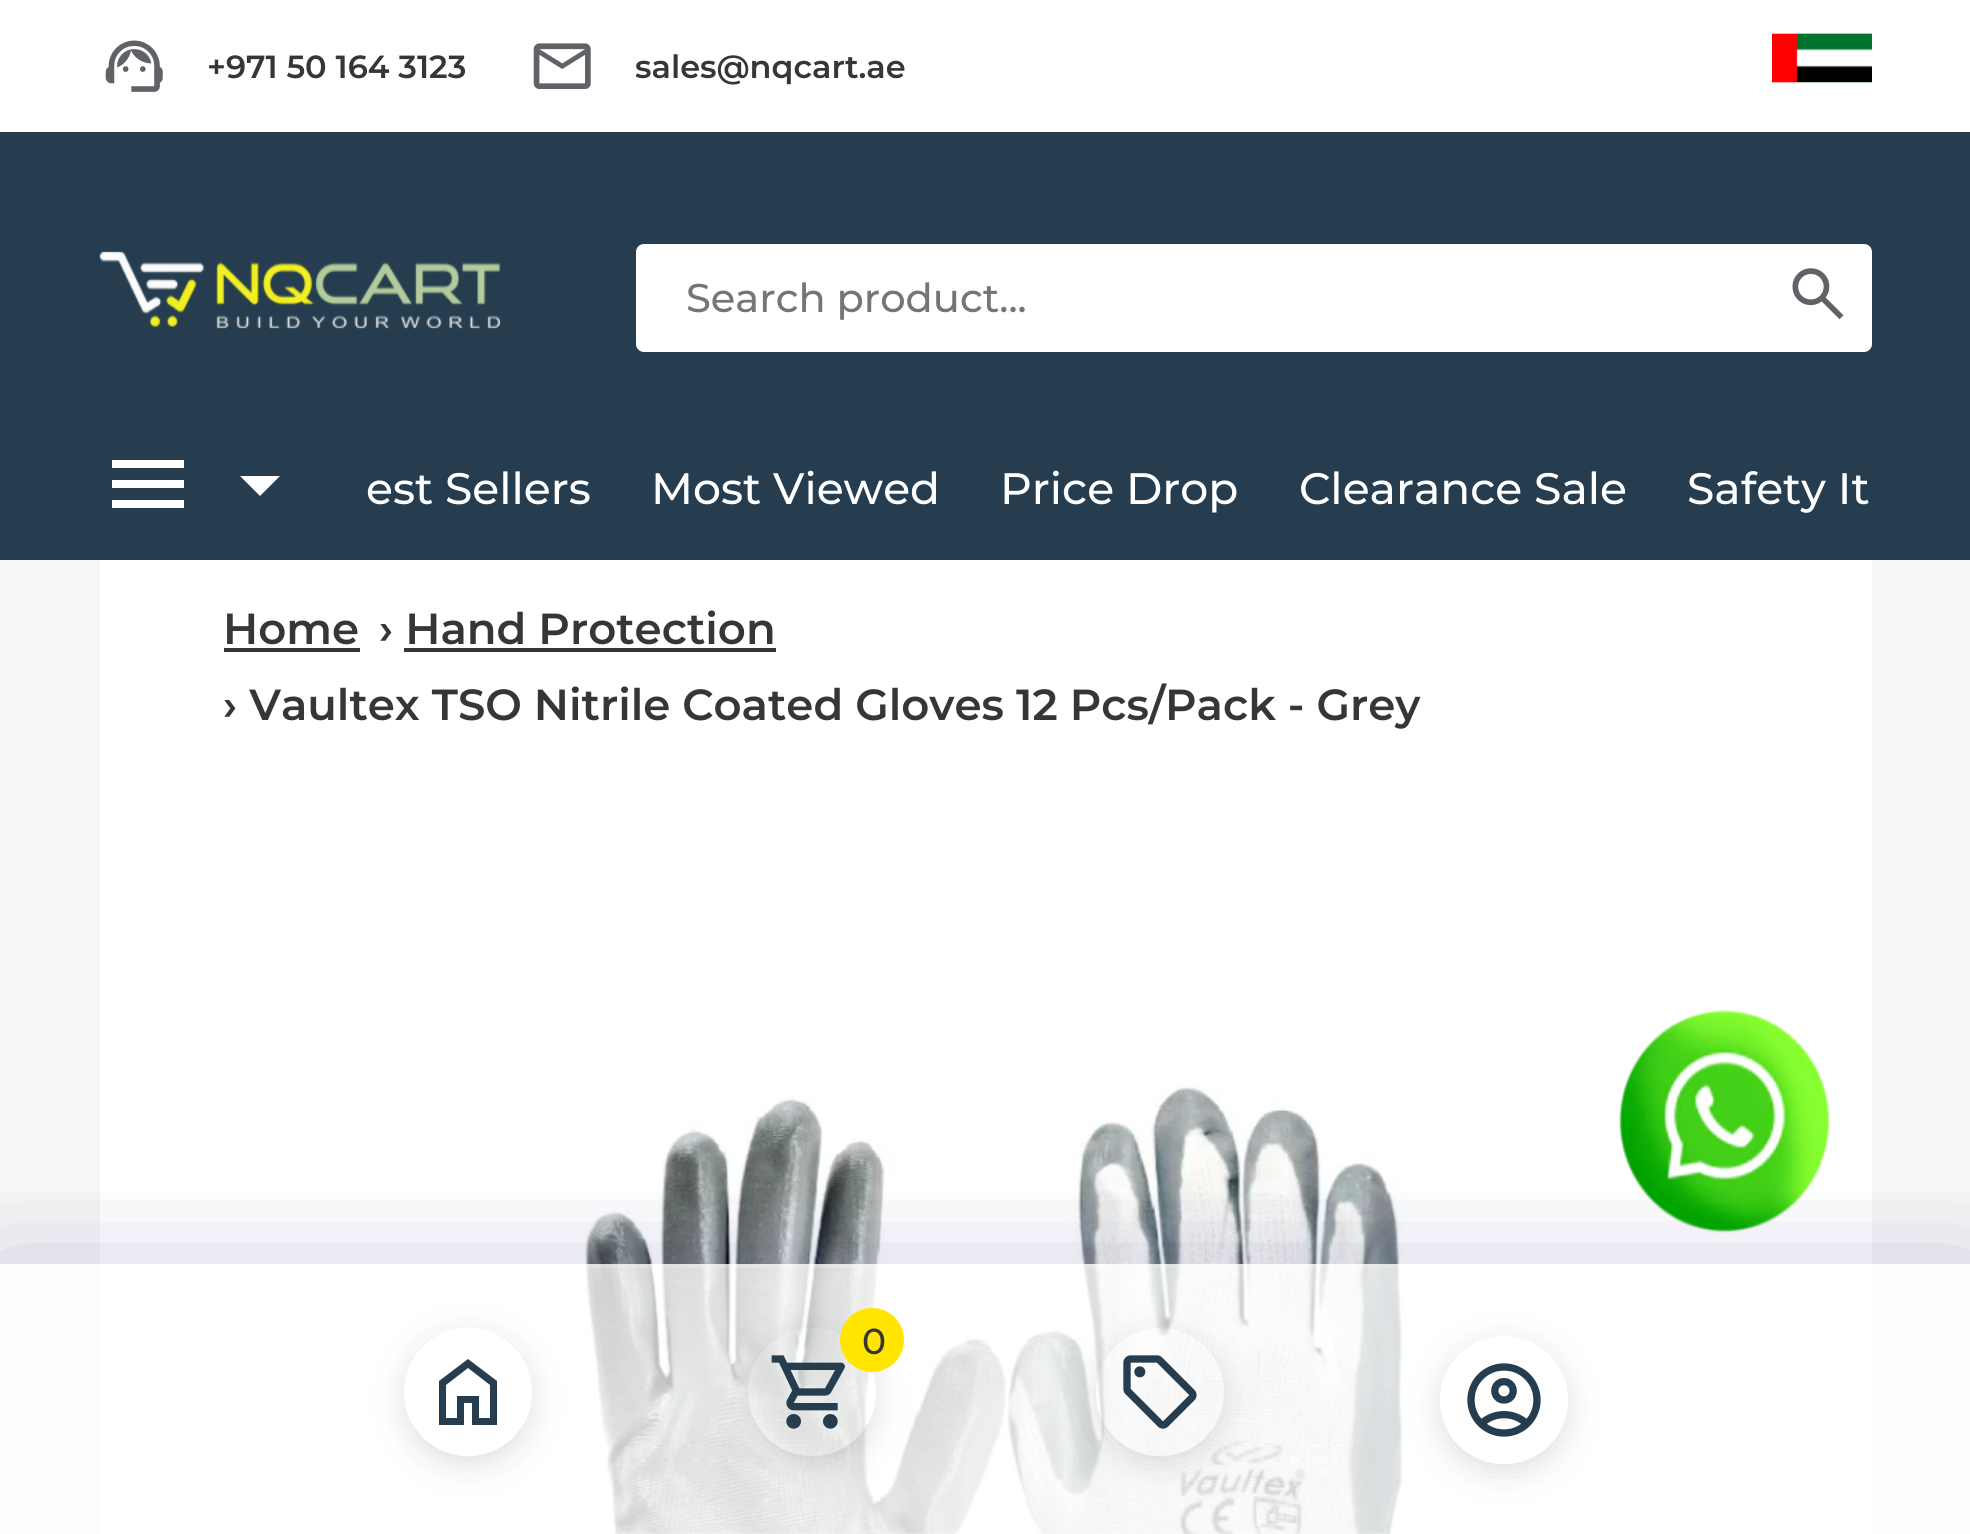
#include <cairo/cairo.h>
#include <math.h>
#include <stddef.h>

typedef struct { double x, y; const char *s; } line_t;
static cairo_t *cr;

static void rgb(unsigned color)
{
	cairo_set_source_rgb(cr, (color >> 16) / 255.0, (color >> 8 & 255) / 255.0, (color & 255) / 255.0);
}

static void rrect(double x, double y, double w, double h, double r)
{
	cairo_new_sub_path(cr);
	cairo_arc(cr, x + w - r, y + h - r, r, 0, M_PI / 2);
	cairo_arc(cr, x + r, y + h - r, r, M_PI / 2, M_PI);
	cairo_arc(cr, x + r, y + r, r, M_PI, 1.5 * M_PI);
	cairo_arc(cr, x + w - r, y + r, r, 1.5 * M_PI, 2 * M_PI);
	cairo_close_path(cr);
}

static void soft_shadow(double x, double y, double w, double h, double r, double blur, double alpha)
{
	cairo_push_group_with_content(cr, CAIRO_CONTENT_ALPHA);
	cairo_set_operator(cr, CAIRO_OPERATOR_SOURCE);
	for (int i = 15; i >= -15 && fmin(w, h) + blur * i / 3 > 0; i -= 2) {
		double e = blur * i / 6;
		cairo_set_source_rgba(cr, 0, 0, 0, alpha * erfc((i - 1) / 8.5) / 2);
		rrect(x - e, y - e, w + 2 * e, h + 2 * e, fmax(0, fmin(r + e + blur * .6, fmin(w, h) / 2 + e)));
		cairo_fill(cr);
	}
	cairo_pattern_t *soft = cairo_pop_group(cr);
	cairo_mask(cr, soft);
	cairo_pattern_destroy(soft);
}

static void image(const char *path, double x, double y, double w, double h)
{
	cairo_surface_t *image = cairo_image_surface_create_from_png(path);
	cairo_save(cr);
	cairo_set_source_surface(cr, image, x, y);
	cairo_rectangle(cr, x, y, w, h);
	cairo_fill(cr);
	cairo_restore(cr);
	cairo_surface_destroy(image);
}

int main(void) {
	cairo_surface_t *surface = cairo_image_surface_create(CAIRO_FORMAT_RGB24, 1970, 1534);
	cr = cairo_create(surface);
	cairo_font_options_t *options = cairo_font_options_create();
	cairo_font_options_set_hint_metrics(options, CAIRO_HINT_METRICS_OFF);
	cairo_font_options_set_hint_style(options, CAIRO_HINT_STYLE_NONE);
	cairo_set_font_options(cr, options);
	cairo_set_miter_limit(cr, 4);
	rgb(0xf6f6f6);
	cairo_paint(cr);
	rgb(0x253d4e);
	cairo_rectangle(cr, 0, 132, 1970, 428);
	cairo_fill(cr);
	rgb(0xffffff);
	cairo_rectangle(cr, 0, 0, 1970, 132);
	cairo_fill(cr);
	image("img/1.png", 105, 40, 58, 52);
	image("img/2.png", 533, 43, 58, 46);
	image("img/3.png", 1772, 33, 100, 50);
	image("img/4.png", 99, 251, 402, 78);
	rrect(636, 244, 1236, 108, 8);
	cairo_fill(cr);
	image("img/5.png", 1792, 268, 52, 52);
	cairo_rectangle(cr, 100, 560, 1772, 974);
	cairo_fill(cr);
	image("img/9.png", 583, 1084, 821, 450);
	cairo_save(cr);
	cairo_rectangle(cr, 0, 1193, 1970, 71);
	cairo_clip(cr);
	rgb(0x1f2687);
	soft_shadow(0, 1296, 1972, 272, 0, 64, 0.37);
	cairo_restore(cr);
	cairo_set_source_rgba(cr, 1, 1, 1, 0.75);
	cairo_rectangle(cr, 0, 1264, 1970, 270);
	cairo_fill(cr);
	cairo_rectangle(cr, 2, 1266, 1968, 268);
	cairo_set_source_rgba(cr, 1, 1, 1, 0.18);
	cairo_set_line_width(cr, 4);
	cairo_stroke(cr);
	cairo_save(cr);
	cairo_set_fill_rule(cr, CAIRO_FILL_RULE_EVEN_ODD);
	cairo_new_path(cr);
	cairo_move_to(cr, 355, 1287);
	cairo_line_to(cr, 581, 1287);
	cairo_line_to(cr, 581, 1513);
	cairo_line_to(cr, 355, 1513);
	cairo_close_path(cr);
	cairo_move_to(cr, 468, 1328);
	cairo_curve_to(cr, 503.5, 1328, 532, 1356.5, 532, 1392);
	cairo_curve_to(cr, 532, 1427.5, 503.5, 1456, 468, 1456);
	cairo_curve_to(cr, 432.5, 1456, 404, 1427.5, 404, 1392);
	cairo_curve_to(cr, 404, 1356.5, 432.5, 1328, 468, 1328);
	cairo_close_path(cr);
	cairo_clip(cr);
	rgb(0x636363);
	soft_shadow(404, 1336, 128, 128, 64, 16, 0.2);
	cairo_restore(cr);
	rgb(0x253d4e);
	cairo_new_path(cr);
	cairo_move_to(cr, 446, 1418);
	cairo_line_to(cr, 457, 1418);
	cairo_line_to(cr, 457, 1396);
	cairo_line_to(cr, 479, 1396);
	cairo_line_to(cr, 479, 1418);
	cairo_line_to(cr, 490, 1418);
	cairo_line_to(cr, 490, 1385);
	cairo_line_to(cr, 468, 1368);
	cairo_line_to(cr, 446, 1385);
	cairo_close_path(cr);
	cairo_move_to(cr, 439, 1425);
	cairo_line_to(cr, 439, 1381);
	cairo_line_to(cr, 468, 1359);
	cairo_line_to(cr, 497, 1381);
	cairo_line_to(cr, 497, 1425);
	cairo_line_to(cr, 472, 1425);
	cairo_line_to(cr, 472, 1403);
	cairo_line_to(cr, 464, 1403);
	cairo_line_to(cr, 464, 1425);
	cairo_close_path(cr);
	cairo_move_to(cr, 468, 1393);
	cairo_close_path(cr);
	cairo_fill(cr);
	cairo_save(cr);
	cairo_set_fill_rule(cr, CAIRO_FILL_RULE_EVEN_ODD);
	cairo_new_path(cr);
	cairo_move_to(cr, 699, 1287);
	cairo_line_to(cr, 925, 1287);
	cairo_line_to(cr, 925, 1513);
	cairo_line_to(cr, 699, 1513);
	cairo_close_path(cr);
	cairo_move_to(cr, 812, 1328);
	cairo_curve_to(cr, 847.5, 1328, 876, 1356.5, 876, 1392);
	cairo_curve_to(cr, 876, 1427.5, 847.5, 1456, 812, 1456);
	cairo_curve_to(cr, 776.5, 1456, 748, 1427.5, 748, 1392);
	cairo_curve_to(cr, 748, 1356.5, 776.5, 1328, 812, 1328);
	cairo_close_path(cr);
	cairo_clip(cr);
	rgb(0x636363);
	soft_shadow(748, 1336, 128, 128, 64, 16, 0.2);
	cairo_restore(cr);
	image("img/6.png", 771, 1355, 74, 74);
	rgb(0xffe500);
	cairo_arc(cr, 872, 1340, 32, 0, 2 * M_PI);
	cairo_fill(cr);
	cairo_save(cr);
	cairo_set_fill_rule(cr, CAIRO_FILL_RULE_EVEN_ODD);
	cairo_new_path(cr);
	cairo_move_to(cr, 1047, 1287);
	cairo_line_to(cr, 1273, 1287);
	cairo_line_to(cr, 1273, 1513);
	cairo_line_to(cr, 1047, 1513);
	cairo_close_path(cr);
	cairo_move_to(cr, 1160, 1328);
	cairo_curve_to(cr, 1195.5, 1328, 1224, 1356.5, 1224, 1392);
	cairo_curve_to(cr, 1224, 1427.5, 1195.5, 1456, 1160, 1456);
	cairo_curve_to(cr, 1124.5, 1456, 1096, 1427.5, 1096, 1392);
	cairo_curve_to(cr, 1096, 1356.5, 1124.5, 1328, 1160, 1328);
	cairo_close_path(cr);
	cairo_clip(cr);
	rgb(0x636363);
	soft_shadow(1096, 1336, 128, 128, 64, 16, 0.2);
	cairo_restore(cr);
	image("img/7.png", 1123, 1355, 74, 74);
	cairo_save(cr);
	cairo_set_fill_rule(cr, CAIRO_FILL_RULE_EVEN_ODD);
	cairo_new_path(cr);
	cairo_move_to(cr, 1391, 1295);
	cairo_line_to(cr, 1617, 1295);
	cairo_line_to(cr, 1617, 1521);
	cairo_line_to(cr, 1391, 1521);
	cairo_close_path(cr);
	cairo_move_to(cr, 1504, 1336);
	cairo_curve_to(cr, 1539.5, 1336, 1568, 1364.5, 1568, 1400);
	cairo_curve_to(cr, 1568, 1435.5, 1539.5, 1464, 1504, 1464);
	cairo_curve_to(cr, 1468.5, 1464, 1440, 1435.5, 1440, 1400);
	cairo_curve_to(cr, 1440, 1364.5, 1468.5, 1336, 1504, 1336);
	cairo_close_path(cr);
	cairo_clip(cr);
	rgb(0x636363);
	soft_shadow(1440, 1344, 128, 128, 64, 16, 0.2);
	cairo_restore(cr);
	image("img/8.png", 1467, 1363, 74, 74);
	rgb(0xffffff);
	cairo_new_path(cr);
	cairo_move_to(cr, 112, 508);
	cairo_line_to(cr, 112, 500);
	cairo_line_to(cr, 184, 500);
	cairo_line_to(cr, 184, 508);
	cairo_close_path(cr);
	cairo_move_to(cr, 112, 488);
	cairo_line_to(cr, 112, 480);
	cairo_line_to(cr, 184, 480);
	cairo_line_to(cr, 184, 488);
	cairo_close_path(cr);
	cairo_move_to(cr, 112, 468);
	cairo_line_to(cr, 112, 460);
	cairo_line_to(cr, 184, 460);
	cairo_line_to(cr, 184, 468);
	cairo_close_path(cr);
	cairo_fill(cr);
	cairo_new_path(cr);
	cairo_move_to(cr, 260, 496);
	cairo_line_to(cr, 240, 476);
	cairo_line_to(cr, 280, 476);
	cairo_close_path(cr);
	cairo_fill(cr);
	rgb(0x363636);
	cairo_rectangle(cr, 224, 648, 136, 4);
	cairo_fill(cr);
	cairo_rectangle(cr, 404, 648, 372, 4);
	cairo_fill(cr);
	image("img/10.png", 1618, 1009, 213, 224);
	cairo_select_font_face(cr, "Montserrat SemiBold", CAIRO_FONT_SLANT_NORMAL, CAIRO_FONT_WEIGHT_NORMAL);
	cairo_set_font_size(cr, 32);
	cairo_move_to(cr, 207, 78);
	cairo_show_text(cr, "+971 50 164 3123");
	cairo_move_to(cr, 635, 78);
	cairo_show_text(cr, "sales@nqcart.ae");
	cairo_select_font_face(cr, "Montserrat Medium", CAIRO_FONT_SLANT_NORMAL, CAIRO_FONT_WEIGHT_NORMAL);
	cairo_set_font_size(cr, 40);
	rgb(0x757575);
	cairo_move_to(cr, 686, 312);
	cairo_show_text(cr, "Search product...");
	cairo_set_font_size(cr, 36);
	rgb(0x363636);
	cairo_move_to(cr, 862, 1354);
	cairo_show_text(cr, "0");
	cairo_set_font_size(cr, 44);
	rgb(0xffffff);
	{
		static const line_t items[] = {
			{366, 504, "est Sellers"},
			{651, 504, "Most Viewed"},
			{1000, 504, "Price Drop"},
			{1299, 504, "Clearance Sale"},
			{1687, 504, "Safety It"},
		};
		for (size_t i = 0; i < sizeof items / sizeof *items; i++) {
			cairo_move_to(cr, items[i].x, items[i].y);
			cairo_show_text(cr, items[i].s);
		}
	}
	cairo_select_font_face(cr, "Montserrat SemiBold", CAIRO_FONT_SLANT_NORMAL, CAIRO_FONT_WEIGHT_NORMAL);
	cairo_set_font_size(cr, 43.45);
	rgb(0x363636);
	{
		static const line_t items[] = {
			{223, 644, "Home"},
			{379, 644, "› Hand Protection"},
			{223, 720, "› Vaultex TSO Nitrile Coated Gloves 12 Pcs/Pack - Grey"},
		};
		for (size_t i = 0; i < sizeof items / sizeof *items; i++) {
			cairo_move_to(cr, items[i].x, items[i].y);
			cairo_show_text(cr, items[i].s);
		}
	}
	cairo_surface_write_to_png(surface, "page.png");
	cairo_font_options_destroy(options);
	cairo_destroy(cr);
	cairo_surface_destroy(surface);
	return 0;
}
